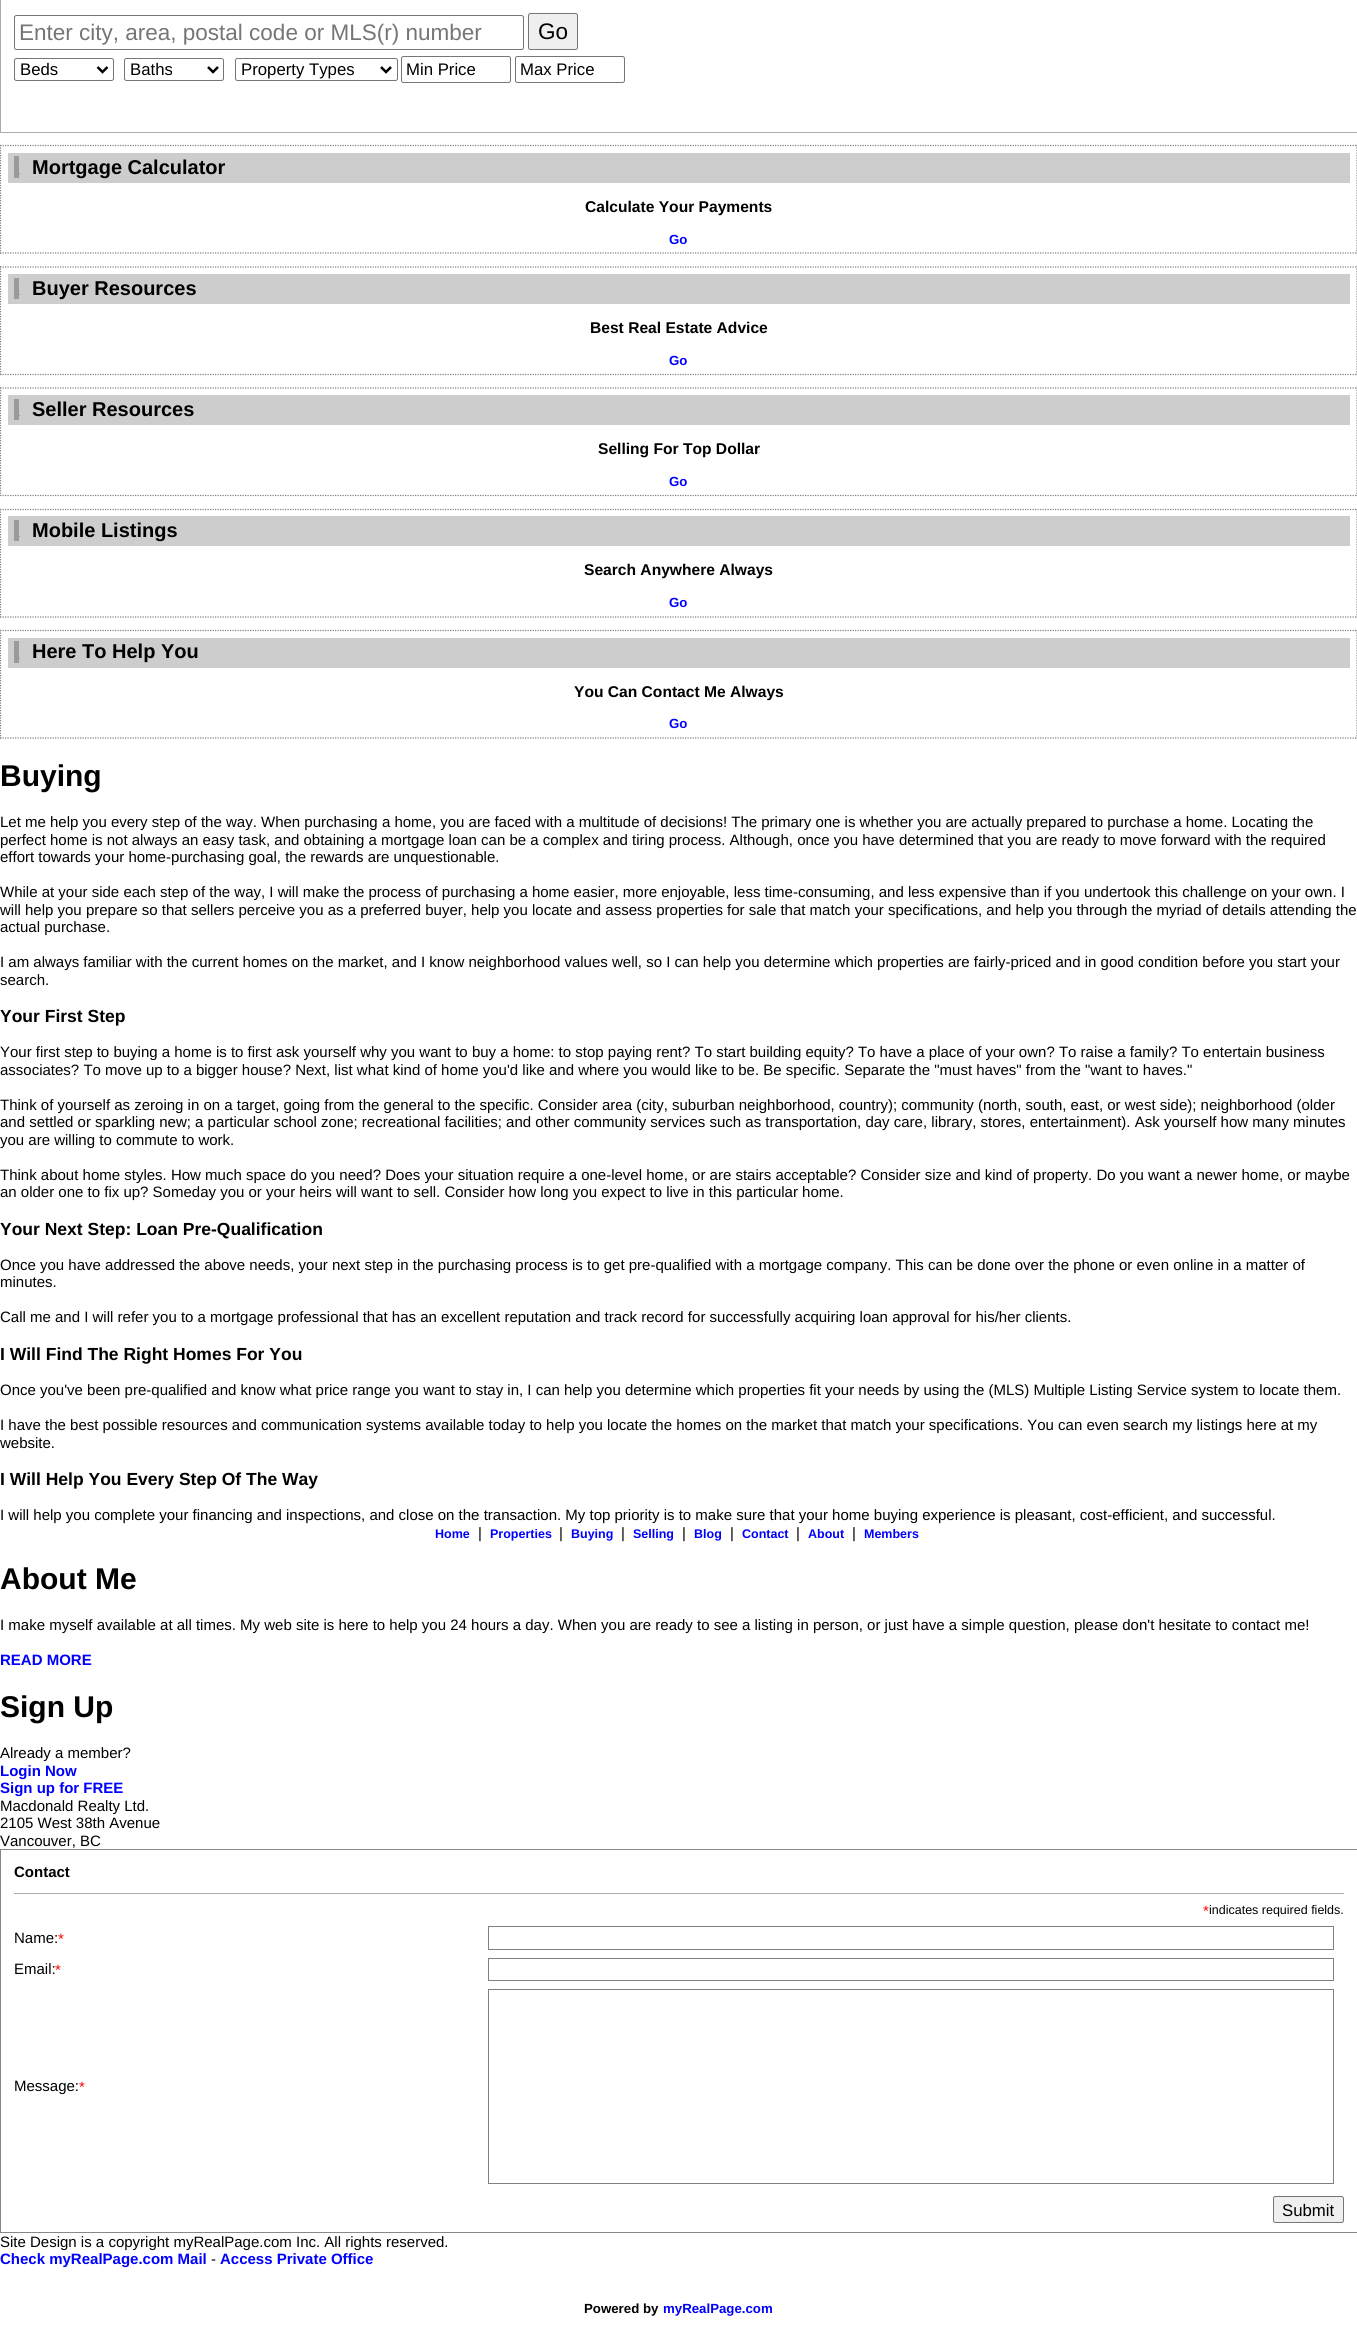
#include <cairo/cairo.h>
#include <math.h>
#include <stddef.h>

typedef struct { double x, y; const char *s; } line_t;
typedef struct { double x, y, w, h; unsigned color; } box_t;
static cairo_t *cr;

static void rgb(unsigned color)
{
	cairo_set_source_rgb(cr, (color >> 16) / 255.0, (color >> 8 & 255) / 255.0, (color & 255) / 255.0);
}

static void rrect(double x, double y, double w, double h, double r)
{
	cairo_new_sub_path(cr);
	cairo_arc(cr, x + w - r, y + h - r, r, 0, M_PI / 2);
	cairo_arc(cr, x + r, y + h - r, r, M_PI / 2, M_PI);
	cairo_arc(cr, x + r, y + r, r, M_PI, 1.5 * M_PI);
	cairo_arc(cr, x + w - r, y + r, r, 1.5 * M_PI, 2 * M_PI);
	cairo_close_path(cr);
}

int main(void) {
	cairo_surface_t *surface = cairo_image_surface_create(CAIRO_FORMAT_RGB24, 1357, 2329);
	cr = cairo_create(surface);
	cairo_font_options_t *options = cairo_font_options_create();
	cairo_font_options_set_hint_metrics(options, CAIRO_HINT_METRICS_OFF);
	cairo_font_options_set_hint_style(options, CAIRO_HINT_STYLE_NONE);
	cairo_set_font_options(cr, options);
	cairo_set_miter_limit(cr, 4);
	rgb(0xffffff);
	cairo_paint(cr);
	cairo_rectangle(cr, 0.5, -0.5, 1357, 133);
	rgb(0xababab);
	cairo_set_line_width(cr, 1);
	cairo_stroke(cr);
	rrect(14.5, 15.5, 509, 34, 2);
	rgb(0x767676);
	cairo_stroke(cr);
	rgb(0xefefef);
	rrect(528.5, 13.5, 49, 36, 2);
	cairo_fill_preserve(cr);
	rgb(0x767676);
	cairo_stroke(cr);
	rrect(14.5, 58.5, 99, 22, 2);
	cairo_stroke(cr);
	cairo_new_path(cr);
	cairo_move_to(cr, 97.5, 67);
	cairo_line_to(cr, 102.5, 72);
	cairo_line_to(cr, 107.5, 67);
	rgb(0x000000);
	cairo_set_line_width(cr, 2.5);
	cairo_stroke(cr);
	rrect(124.5, 58.5, 99, 22, 2);
	rgb(0x767676);
	cairo_set_line_width(cr, 1);
	cairo_stroke(cr);
	cairo_new_path(cr);
	cairo_move_to(cr, 208, 67);
	cairo_line_to(cr, 213, 72);
	cairo_line_to(cr, 218, 67);
	rgb(0x000000);
	cairo_set_line_width(cr, 2.5);
	cairo_stroke(cr);
	rrect(235.5, 58.5, 162, 22, 2);
	rgb(0x767676);
	cairo_set_line_width(cr, 1);
	cairo_stroke(cr);
	cairo_new_path(cr);
	cairo_move_to(cr, 381, 67);
	cairo_line_to(cr, 386, 72);
	cairo_line_to(cr, 391, 67);
	rgb(0x000000);
	cairo_set_line_width(cr, 2.5);
	cairo_stroke(cr);
	rrect(401.5, 56.5, 109, 26, 2);
	rgb(0x767676);
	cairo_set_line_width(cr, 1);
	cairo_stroke(cr);
	rrect(515.5, 56.5, 109, 26, 2);
	cairo_stroke(cr);
	cairo_new_path(cr);
	cairo_move_to(cr, 0, 145.5);
	cairo_line_to(cr, 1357.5, 145.5);
	rgb(0x808080);
	cairo_set_line_width(cr, 1.2);
	cairo_set_dash(cr, (double[]){1.25, 1.25}, 2, 0);
	cairo_stroke(cr);
	cairo_new_path(cr);
	cairo_move_to(cr, 1357, 145);
	cairo_line_to(cr, 1357, 254);
	cairo_stroke(cr);
	cairo_new_path(cr);
	cairo_move_to(cr, 0, 253);
	cairo_line_to(cr, 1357.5, 253);
	cairo_stroke(cr);
	cairo_new_path(cr);
	cairo_move_to(cr, 0.5, 145);
	cairo_line_to(cr, 0.5, 254);
	cairo_stroke(cr);
	{
		static const box_t items[] = {
			{8, 153, 1342, 30, 0xcdcdcd},
			{14, 156, 5, 22, 0x9a9a9a},
			{19, 173, 1, 1, 0x9a9a9a},
		};
		for (size_t i = 0; i < sizeof items / sizeof *items; i++) {
			rgb(items[i].color);
			cairo_rectangle(cr, items[i].x, items[i].y, items[i].w, items[i].h);
			cairo_fill(cr);
		}
	}
	cairo_new_path(cr);
	cairo_move_to(cr, 0, 267);
	cairo_line_to(cr, 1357.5, 267);
	rgb(0x808080);
	cairo_stroke(cr);
	cairo_new_path(cr);
	cairo_move_to(cr, 1357, 266);
	cairo_line_to(cr, 1357, 375);
	cairo_stroke(cr);
	cairo_new_path(cr);
	cairo_move_to(cr, 0, 374.5);
	cairo_line_to(cr, 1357.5, 374.5);
	cairo_stroke(cr);
	cairo_new_path(cr);
	cairo_move_to(cr, 0.5, 266);
	cairo_line_to(cr, 0.5, 375);
	cairo_stroke(cr);
	{
		static const box_t items[] = {
			{8, 274, 1342, 30, 0xcdcdcd},
			{14, 278, 5, 21, 0x9a9a9a},
			{19, 294, 1, 1, 0x9a9a9a},
		};
		for (size_t i = 0; i < sizeof items / sizeof *items; i++) {
			rgb(items[i].color);
			cairo_rectangle(cr, items[i].x, items[i].y, items[i].w, items[i].h);
			cairo_fill(cr);
		}
	}
	cairo_new_path(cr);
	cairo_move_to(cr, 0, 388);
	cairo_line_to(cr, 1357.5, 388);
	rgb(0x808080);
	cairo_stroke(cr);
	cairo_new_path(cr);
	cairo_move_to(cr, 1357, 387.5);
	cairo_line_to(cr, 1357, 496);
	cairo_stroke(cr);
	cairo_new_path(cr);
	cairo_move_to(cr, 0, 495.5);
	cairo_line_to(cr, 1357.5, 495.5);
	cairo_stroke(cr);
	cairo_new_path(cr);
	cairo_move_to(cr, 0.5, 387.5);
	cairo_line_to(cr, 0.5, 496);
	cairo_stroke(cr);
	{
		static const box_t items[] = {
			{8, 395, 1342, 30, 0xcdcdcd},
			{14, 399, 5, 21, 0x9a9a9a},
			{19, 415, 1, 1, 0x9a9a9a},
		};
		for (size_t i = 0; i < sizeof items / sizeof *items; i++) {
			rgb(items[i].color);
			cairo_rectangle(cr, items[i].x, items[i].y, items[i].w, items[i].h);
			cairo_fill(cr);
		}
	}
	cairo_new_path(cr);
	cairo_move_to(cr, 0, 509.5);
	cairo_line_to(cr, 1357.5, 509.5);
	rgb(0x808080);
	cairo_stroke(cr);
	cairo_new_path(cr);
	cairo_move_to(cr, 1357, 509);
	cairo_line_to(cr, 1357, 617.5);
	cairo_stroke(cr);
	cairo_new_path(cr);
	cairo_move_to(cr, 0, 617);
	cairo_line_to(cr, 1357.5, 617);
	cairo_stroke(cr);
	cairo_new_path(cr);
	cairo_move_to(cr, 0.5, 509);
	cairo_line_to(cr, 0.5, 617.5);
	cairo_stroke(cr);
	{
		static const box_t items[] = {
			{8, 516, 1342, 30, 0xcdcdcd},
			{14, 520, 5, 21, 0x9a9a9a},
			{19, 536, 1, 1, 0x9a9a9a},
		};
		for (size_t i = 0; i < sizeof items / sizeof *items; i++) {
			rgb(items[i].color);
			cairo_rectangle(cr, items[i].x, items[i].y, items[i].w, items[i].h);
			cairo_fill(cr);
		}
	}
	cairo_new_path(cr);
	cairo_move_to(cr, 0, 630.5);
	cairo_line_to(cr, 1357.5, 630.5);
	rgb(0x808080);
	cairo_stroke(cr);
	cairo_new_path(cr);
	cairo_move_to(cr, 1357, 630);
	cairo_line_to(cr, 1357, 739);
	cairo_stroke(cr);
	cairo_new_path(cr);
	cairo_move_to(cr, 0, 738);
	cairo_line_to(cr, 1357.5, 738);
	cairo_stroke(cr);
	cairo_new_path(cr);
	cairo_move_to(cr, 0.5, 630);
	cairo_line_to(cr, 0.5, 739);
	cairo_stroke(cr);
	{
		static const box_t items[] = {
			{8, 638, 1342, 30, 0xcdcdcd},
			{14, 641, 5, 22, 0x9a9a9a},
			{19, 658, 1, 1, 0x9a9a9a},
		};
		for (size_t i = 0; i < sizeof items / sizeof *items; i++) {
			rgb(items[i].color);
			cairo_rectangle(cr, items[i].x, items[i].y, items[i].w, items[i].h);
			cairo_fill(cr);
		}
	}
	cairo_rectangle(cr, 0.5, 1849.5, 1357, 383);
	rgb(0x888888);
	cairo_set_line_width(cr, 1);
	cairo_set_dash(cr, NULL, 0, 0);
	cairo_stroke(cr);
	rgb(0xababab);
	cairo_rectangle(cr, 14, 1893, 1330, 1);
	cairo_fill(cr);
	cairo_rectangle(cr, 488.5, 1926.5, 845, 23);
	rgb(0x808080);
	cairo_stroke(cr);
	cairo_rectangle(cr, 488.5, 1958.5, 845, 22);
	cairo_stroke(cr);
	cairo_rectangle(cr, 488.5, 1989.5, 845, 194);
	cairo_stroke(cr);
	rgb(0xefefef);
	rrect(1273.5, 2196.5, 70, 26, 2);
	cairo_fill_preserve(cr);
	rgb(0x767676);
	cairo_stroke(cr);
	cairo_select_font_face(cr, "Liberation Sans", CAIRO_FONT_SLANT_NORMAL, CAIRO_FONT_WEIGHT_NORMAL);
	cairo_set_font_size(cr, 22.5);
	rgb(0x757575);
	cairo_move_to(cr, 19, 40);
	cairo_show_text(cr, "Enter city, area, postal code or MLS(r) number");
	rgb(0x000000);
	cairo_move_to(cr, 538, 39);
	cairo_show_text(cr, "Go");
	cairo_set_font_size(cr, 16.75);
	{
		static const line_t items[] = {
			{20, 75, "Beds"},
			{130, 75, "Baths"},
			{241, 75, "Property Types"},
			{406, 75, "Min Price"},
			{520, 75, "Max Price"},
		};
		for (size_t i = 0; i < sizeof items / sizeof *items; i++) {
			cairo_move_to(cr, items[i].x, items[i].y);
			cairo_show_text(cr, items[i].s);
		}
	}
	cairo_select_font_face(cr, "Liberation Sans", CAIRO_FONT_SLANT_NORMAL, CAIRO_FONT_WEIGHT_BOLD);
	cairo_set_font_size(cr, 20);
	cairo_move_to(cr, 32, 174);
	cairo_show_text(cr, "Mortgage Calculator");
	cairo_set_font_size(cr, 15.6);
	cairo_move_to(cr, 585, 212);
	cairo_show_text(cr, "Calculate Your Payments");
	cairo_set_font_size(cr, 13.25);
	rgb(0x0000ff);
	cairo_move_to(cr, 669, 244);
	cairo_show_text(cr, "Go");
	cairo_set_font_size(cr, 20);
	rgb(0x000000);
	cairo_move_to(cr, 32, 295);
	cairo_show_text(cr, "Buyer Resources");
	cairo_set_font_size(cr, 15.6);
	cairo_move_to(cr, 590, 333);
	cairo_show_text(cr, "Best Real Estate Advice");
	cairo_set_font_size(cr, 13.25);
	rgb(0x0000ff);
	cairo_move_to(cr, 669, 365);
	cairo_show_text(cr, "Go");
	cairo_set_font_size(cr, 20);
	rgb(0x000000);
	cairo_move_to(cr, 32, 416);
	cairo_show_text(cr, "Seller Resources");
	cairo_set_font_size(cr, 15.6);
	cairo_move_to(cr, 598, 454);
	cairo_show_text(cr, "Selling For Top Dollar");
	cairo_set_font_size(cr, 13.25);
	rgb(0x0000ff);
	cairo_move_to(cr, 669, 486);
	cairo_show_text(cr, "Go");
	cairo_set_font_size(cr, 20);
	rgb(0x000000);
	cairo_move_to(cr, 32, 537);
	cairo_show_text(cr, "Mobile Listings");
	cairo_set_font_size(cr, 15.6);
	cairo_move_to(cr, 584, 575);
	cairo_show_text(cr, "Search Anywhere Always");
	cairo_set_font_size(cr, 13.25);
	rgb(0x0000ff);
	cairo_move_to(cr, 669, 607);
	cairo_show_text(cr, "Go");
	cairo_set_font_size(cr, 20);
	rgb(0x000000);
	cairo_move_to(cr, 32, 658);
	cairo_show_text(cr, "Here To Help You");
	cairo_set_font_size(cr, 15.6);
	cairo_move_to(cr, 574, 697);
	cairo_show_text(cr, "You Can Contact Me Always");
	cairo_set_font_size(cr, 13.25);
	rgb(0x0000ff);
	cairo_move_to(cr, 669, 728);
	cairo_show_text(cr, "Go");
	cairo_set_font_size(cr, 30);
	rgb(0x000000);
	cairo_move_to(cr, 0, 786);
	cairo_show_text(cr, "Buying");
	cairo_select_font_face(cr, "Liberation Sans", CAIRO_FONT_SLANT_NORMAL, CAIRO_FONT_WEIGHT_NORMAL);
	cairo_set_font_size(cr, 15);
	{
		static const line_t items[] = {
			{0, 827, "Let me help you every step of the way. When purchasing a home, you are faced with a multitude of decisions! The primary one is whether you are actually prepared to purchase a home. Locating the"},
			{0, 845, "perfect home is not always an easy task, and obtaining a mortgage loan can be a complex and tiring process. Although, once you have determined that you are ready to move forward with the required"},
			{0, 862, "effort towards your home-purchasing goal, the rewards are unquestionable."},
			{0, 897, "While at your side each step of the way, I will make the process of purchasing a home easier, more enjoyable, less time-consuming, and less expensive than if you undertook this challenge on your own. I"},
			{0, 915, "will help you prepare so that sellers perceive you as a preferred buyer, help you locate and assess properties for sale that match your specifications, and help you through the myriad of details attending the"},
			{0, 932, "actual purchase."},
			{0, 967, "I am always familiar with the current homes on the market, and I know neighborhood values well, so I can help you determine which properties are fairly-priced and in good condition before you start your"},
			{0, 985, "search."},
		};
		for (size_t i = 0; i < sizeof items / sizeof *items; i++) {
			cairo_move_to(cr, items[i].x, items[i].y);
			cairo_show_text(cr, items[i].s);
		}
	}
	cairo_select_font_face(cr, "Liberation Sans", CAIRO_FONT_SLANT_NORMAL, CAIRO_FONT_WEIGHT_BOLD);
	cairo_set_font_size(cr, 17.5);
	cairo_move_to(cr, 0, 1022);
	cairo_show_text(cr, "Your First Step");
	cairo_select_font_face(cr, "Liberation Sans", CAIRO_FONT_SLANT_NORMAL, CAIRO_FONT_WEIGHT_NORMAL);
	cairo_set_font_size(cr, 15);
	{
		static const line_t items[] = {
			{0, 1057, "Your first step to buying a home is to first ask yourself why you want to buy a home: to stop paying rent? To start building equity? To have a place of your own? To raise a family? To entertain business"},
			{0, 1075, "associates? To move up to a bigger house? Next, list what kind of home you'd like and where you would like to be. Be specific. Separate the \"must haves\" from the \"want to haves.\""},
			{0, 1110, "Think of yourself as zeroing in on a target, going from the general to the specific. Consider area (city, suburban neighborhood, country); community (north, south, east, or west side); neighborhood (older"},
			{0, 1127, "and settled or sparkling new; a particular school zone; recreational facilities; and other community services such as transportation, day care, library, stores, entertainment). Ask yourself how many minutes"},
			{0, 1145, "you are willing to commute to work."},
			{0, 1180, "Think about home styles. How much space do you need? Does your situation require a one-level home, or are stairs acceptable? Consider size and kind of property. Do you want a newer home, or maybe"},
			{0, 1197, "an older one to fix up? Someday you or your heirs will want to sell. Consider how long you expect to live in this particular home."},
		};
		for (size_t i = 0; i < sizeof items / sizeof *items; i++) {
			cairo_move_to(cr, items[i].x, items[i].y);
			cairo_show_text(cr, items[i].s);
		}
	}
	cairo_select_font_face(cr, "Liberation Sans", CAIRO_FONT_SLANT_NORMAL, CAIRO_FONT_WEIGHT_BOLD);
	cairo_set_font_size(cr, 17.5);
	cairo_move_to(cr, 0, 1235);
	cairo_show_text(cr, "Your Next Step: Loan Pre-Qualification");
	cairo_select_font_face(cr, "Liberation Sans", CAIRO_FONT_SLANT_NORMAL, CAIRO_FONT_WEIGHT_NORMAL);
	cairo_set_font_size(cr, 15);
	{
		static const line_t items[] = {
			{0, 1270, "Once you have addressed the above needs, your next step in the purchasing process is to get pre-qualified with a mortgage company. This can be done over the phone or even online in a matter of"},
			{0, 1287, "minutes."},
			{0, 1322, "Call me and I will refer you to a mortgage professional that has an excellent reputation and track record for successfully acquiring loan approval for his/her clients."},
		};
		for (size_t i = 0; i < sizeof items / sizeof *items; i++) {
			cairo_move_to(cr, items[i].x, items[i].y);
			cairo_show_text(cr, items[i].s);
		}
	}
	cairo_select_font_face(cr, "Liberation Sans", CAIRO_FONT_SLANT_NORMAL, CAIRO_FONT_WEIGHT_BOLD);
	cairo_set_font_size(cr, 17.5);
	cairo_move_to(cr, 0, 1360);
	cairo_show_text(cr, "I Will Find The Right Homes For You");
	cairo_select_font_face(cr, "Liberation Sans", CAIRO_FONT_SLANT_NORMAL, CAIRO_FONT_WEIGHT_NORMAL);
	cairo_set_font_size(cr, 15);
	{
		static const line_t items[] = {
			{0, 1395, "Once you've been pre-qualified and know what price range you want to stay in, I can help you determine which properties fit your needs by using the (MLS) Multiple Listing Service system to locate them."},
			{0, 1430, "I have the best possible resources and communication systems available today to help you locate the homes on the market that match your specifications. You can even search my listings here at my"},
			{0, 1448, "website."},
		};
		for (size_t i = 0; i < sizeof items / sizeof *items; i++) {
			cairo_move_to(cr, items[i].x, items[i].y);
			cairo_show_text(cr, items[i].s);
		}
	}
	cairo_select_font_face(cr, "Liberation Sans", CAIRO_FONT_SLANT_NORMAL, CAIRO_FONT_WEIGHT_BOLD);
	cairo_set_font_size(cr, 17.5);
	cairo_move_to(cr, 0, 1485);
	cairo_show_text(cr, "I Will Help You Every Step Of The Way");
	cairo_select_font_face(cr, "Liberation Sans", CAIRO_FONT_SLANT_NORMAL, CAIRO_FONT_WEIGHT_NORMAL);
	cairo_set_font_size(cr, 15);
	cairo_move_to(cr, 0, 1520);
	cairo_show_text(cr, "I will help you complete your financing and inspections, and close on the transaction. My top priority is to make sure that your home buying experience is pleasant, cost-efficient, and successful.");
	cairo_select_font_face(cr, "Liberation Sans", CAIRO_FONT_SLANT_NORMAL, CAIRO_FONT_WEIGHT_BOLD);
	cairo_set_font_size(cr, 12.5);
	rgb(0x0000ff);
	cairo_move_to(cr, 435, 1538);
	cairo_show_text(cr, "Home");
	cairo_select_font_face(cr, "Liberation Sans", CAIRO_FONT_SLANT_NORMAL, CAIRO_FONT_WEIGHT_NORMAL);
	cairo_set_font_size(cr, 15);
	rgb(0x000000);
	cairo_move_to(cr, 478, 1538);
	cairo_show_text(cr, "|");
	cairo_select_font_face(cr, "Liberation Sans", CAIRO_FONT_SLANT_NORMAL, CAIRO_FONT_WEIGHT_BOLD);
	cairo_set_font_size(cr, 12.5);
	rgb(0x0000ff);
	cairo_move_to(cr, 490, 1538);
	cairo_show_text(cr, "Properties");
	cairo_select_font_face(cr, "Liberation Sans", CAIRO_FONT_SLANT_NORMAL, CAIRO_FONT_WEIGHT_NORMAL);
	cairo_set_font_size(cr, 15);
	rgb(0x000000);
	cairo_move_to(cr, 559, 1538);
	cairo_show_text(cr, "|");
	cairo_select_font_face(cr, "Liberation Sans", CAIRO_FONT_SLANT_NORMAL, CAIRO_FONT_WEIGHT_BOLD);
	cairo_set_font_size(cr, 12.5);
	rgb(0x0000ff);
	cairo_move_to(cr, 571, 1538);
	cairo_show_text(cr, "Buying");
	cairo_select_font_face(cr, "Liberation Sans", CAIRO_FONT_SLANT_NORMAL, CAIRO_FONT_WEIGHT_NORMAL);
	cairo_set_font_size(cr, 15);
	rgb(0x000000);
	cairo_move_to(cr, 621, 1538);
	cairo_show_text(cr, "|");
	cairo_select_font_face(cr, "Liberation Sans", CAIRO_FONT_SLANT_NORMAL, CAIRO_FONT_WEIGHT_BOLD);
	cairo_set_font_size(cr, 12.5);
	rgb(0x0000ff);
	cairo_move_to(cr, 633, 1538);
	cairo_show_text(cr, "Selling");
	cairo_select_font_face(cr, "Liberation Sans", CAIRO_FONT_SLANT_NORMAL, CAIRO_FONT_WEIGHT_NORMAL);
	cairo_set_font_size(cr, 15);
	rgb(0x000000);
	cairo_move_to(cr, 682, 1538);
	cairo_show_text(cr, "|");
	cairo_select_font_face(cr, "Liberation Sans", CAIRO_FONT_SLANT_NORMAL, CAIRO_FONT_WEIGHT_BOLD);
	cairo_set_font_size(cr, 12.5);
	rgb(0x0000ff);
	cairo_move_to(cr, 694, 1538);
	cairo_show_text(cr, "Blog");
	cairo_select_font_face(cr, "Liberation Sans", CAIRO_FONT_SLANT_NORMAL, CAIRO_FONT_WEIGHT_NORMAL);
	cairo_set_font_size(cr, 15);
	rgb(0x000000);
	cairo_move_to(cr, 730, 1538);
	cairo_show_text(cr, "|");
	cairo_select_font_face(cr, "Liberation Sans", CAIRO_FONT_SLANT_NORMAL, CAIRO_FONT_WEIGHT_BOLD);
	cairo_set_font_size(cr, 12.5);
	rgb(0x0000ff);
	cairo_move_to(cr, 742, 1538);
	cairo_show_text(cr, "Contact");
	cairo_select_font_face(cr, "Liberation Sans", CAIRO_FONT_SLANT_NORMAL, CAIRO_FONT_WEIGHT_NORMAL);
	cairo_set_font_size(cr, 15);
	rgb(0x000000);
	cairo_move_to(cr, 796, 1538);
	cairo_show_text(cr, "|");
	cairo_select_font_face(cr, "Liberation Sans", CAIRO_FONT_SLANT_NORMAL, CAIRO_FONT_WEIGHT_BOLD);
	cairo_set_font_size(cr, 12.5);
	rgb(0x0000ff);
	cairo_move_to(cr, 808, 1538);
	cairo_show_text(cr, "About");
	cairo_select_font_face(cr, "Liberation Sans", CAIRO_FONT_SLANT_NORMAL, CAIRO_FONT_WEIGHT_NORMAL);
	cairo_set_font_size(cr, 15);
	rgb(0x000000);
	cairo_move_to(cr, 852, 1538);
	cairo_show_text(cr, "|");
	cairo_select_font_face(cr, "Liberation Sans", CAIRO_FONT_SLANT_NORMAL, CAIRO_FONT_WEIGHT_BOLD);
	cairo_set_font_size(cr, 12.5);
	rgb(0x0000ff);
	cairo_move_to(cr, 864, 1538);
	cairo_show_text(cr, "Members");
	cairo_set_font_size(cr, 30);
	rgb(0x000000);
	cairo_move_to(cr, 0, 1589);
	cairo_show_text(cr, "About Me");
	cairo_select_font_face(cr, "Liberation Sans", CAIRO_FONT_SLANT_NORMAL, CAIRO_FONT_WEIGHT_NORMAL);
	cairo_set_font_size(cr, 15);
	cairo_move_to(cr, 0, 1630);
	cairo_show_text(cr, "I make myself available at all times. My web site is here to help you 24 hours a day. When you are ready to see a listing in person, or just have a simple question, please don't hesitate to contact me!");
	cairo_select_font_face(cr, "Liberation Sans", CAIRO_FONT_SLANT_NORMAL, CAIRO_FONT_WEIGHT_BOLD);
	rgb(0x0000ff);
	cairo_move_to(cr, 0, 1665);
	cairo_show_text(cr, "READ MORE");
	cairo_set_font_size(cr, 30);
	rgb(0x000000);
	cairo_move_to(cr, 0, 1717);
	cairo_show_text(cr, "Sign Up");
	cairo_select_font_face(cr, "Liberation Sans", CAIRO_FONT_SLANT_NORMAL, CAIRO_FONT_WEIGHT_NORMAL);
	cairo_set_font_size(cr, 15);
	cairo_move_to(cr, 0, 1758);
	cairo_show_text(cr, "Already a member?");
	cairo_select_font_face(cr, "Liberation Sans", CAIRO_FONT_SLANT_NORMAL, CAIRO_FONT_WEIGHT_BOLD);
	rgb(0x0000ff);
	cairo_move_to(cr, 0, 1776);
	cairo_show_text(cr, "Login Now");
	cairo_move_to(cr, 0, 1793);
	cairo_show_text(cr, "Sign up for FREE");
	cairo_select_font_face(cr, "Liberation Sans", CAIRO_FONT_SLANT_NORMAL, CAIRO_FONT_WEIGHT_NORMAL);
	rgb(0x000000);
	{
		static const line_t items[] = {
			{0, 1811, "Macdonald Realty Ltd."},
			{0, 1828, "2105 West 38th Avenue"},
			{0, 1846, "Vancouver, BC"},
		};
		for (size_t i = 0; i < sizeof items / sizeof *items; i++) {
			cairo_move_to(cr, items[i].x, items[i].y);
			cairo_show_text(cr, items[i].s);
		}
	}
	cairo_select_font_face(cr, "Liberation Sans", CAIRO_FONT_SLANT_NORMAL, CAIRO_FONT_WEIGHT_BOLD);
	cairo_move_to(cr, 14, 1877);
	cairo_show_text(cr, "Contact");
	cairo_select_font_face(cr, "Liberation Sans", CAIRO_FONT_SLANT_NORMAL, CAIRO_FONT_WEIGHT_NORMAL);
	rgb(0xff0000);
	cairo_move_to(cr, 1203, 1916);
	cairo_show_text(cr, "*");
	cairo_set_font_size(cr, 12.5);
	rgb(0x000000);
	cairo_move_to(cr, 1209, 1914);
	cairo_show_text(cr, "indicates required fields.");
	cairo_set_font_size(cr, 15);
	cairo_move_to(cr, 14, 1943);
	cairo_show_text(cr, "Name:");
	rgb(0xff0000);
	cairo_move_to(cr, 58, 1944);
	cairo_show_text(cr, "*");
	rgb(0x000000);
	cairo_move_to(cr, 14, 1974);
	cairo_show_text(cr, "Email:");
	rgb(0xff0000);
	cairo_move_to(cr, 55, 1975);
	cairo_show_text(cr, "*");
	rgb(0x000000);
	cairo_move_to(cr, 14, 2091);
	cairo_show_text(cr, "Message:");
	rgb(0xff0000);
	cairo_move_to(cr, 79, 2092);
	cairo_show_text(cr, "*");
	cairo_set_font_size(cr, 16.75);
	rgb(0x000000);
	cairo_move_to(cr, 1282, 2216);
	cairo_show_text(cr, "Submit");
	cairo_set_font_size(cr, 15);
	cairo_move_to(cr, 0, 2247);
	cairo_show_text(cr, "Site Design is a copyright myRealPage.com Inc. All rights reserved.");
	cairo_select_font_face(cr, "Liberation Sans", CAIRO_FONT_SLANT_NORMAL, CAIRO_FONT_WEIGHT_BOLD);
	rgb(0x0000ff);
	cairo_move_to(cr, 0, 2264);
	cairo_show_text(cr, "Check myRealPage.com Mail");
	cairo_select_font_face(cr, "Liberation Sans", CAIRO_FONT_SLANT_NORMAL, CAIRO_FONT_WEIGHT_NORMAL);
	rgb(0x000000);
	cairo_move_to(cr, 211, 2264);
	cairo_show_text(cr, "-");
	cairo_select_font_face(cr, "Liberation Sans", CAIRO_FONT_SLANT_NORMAL, CAIRO_FONT_WEIGHT_BOLD);
	rgb(0x0000ff);
	cairo_move_to(cr, 220, 2264);
	cairo_show_text(cr, "Access Private Office");
	cairo_set_font_size(cr, 13.25);
	rgb(0x000000);
	cairo_move_to(cr, 584, 2313);
	cairo_show_text(cr, "Powered by");
	rgb(0x0000ff);
	cairo_move_to(cr, 663, 2313);
	cairo_show_text(cr, "myRealPage.com");
	cairo_surface_write_to_png(surface, "page.png");
	cairo_font_options_destroy(options);
	cairo_destroy(cr);
	cairo_surface_destroy(surface);
	return 0;
}
